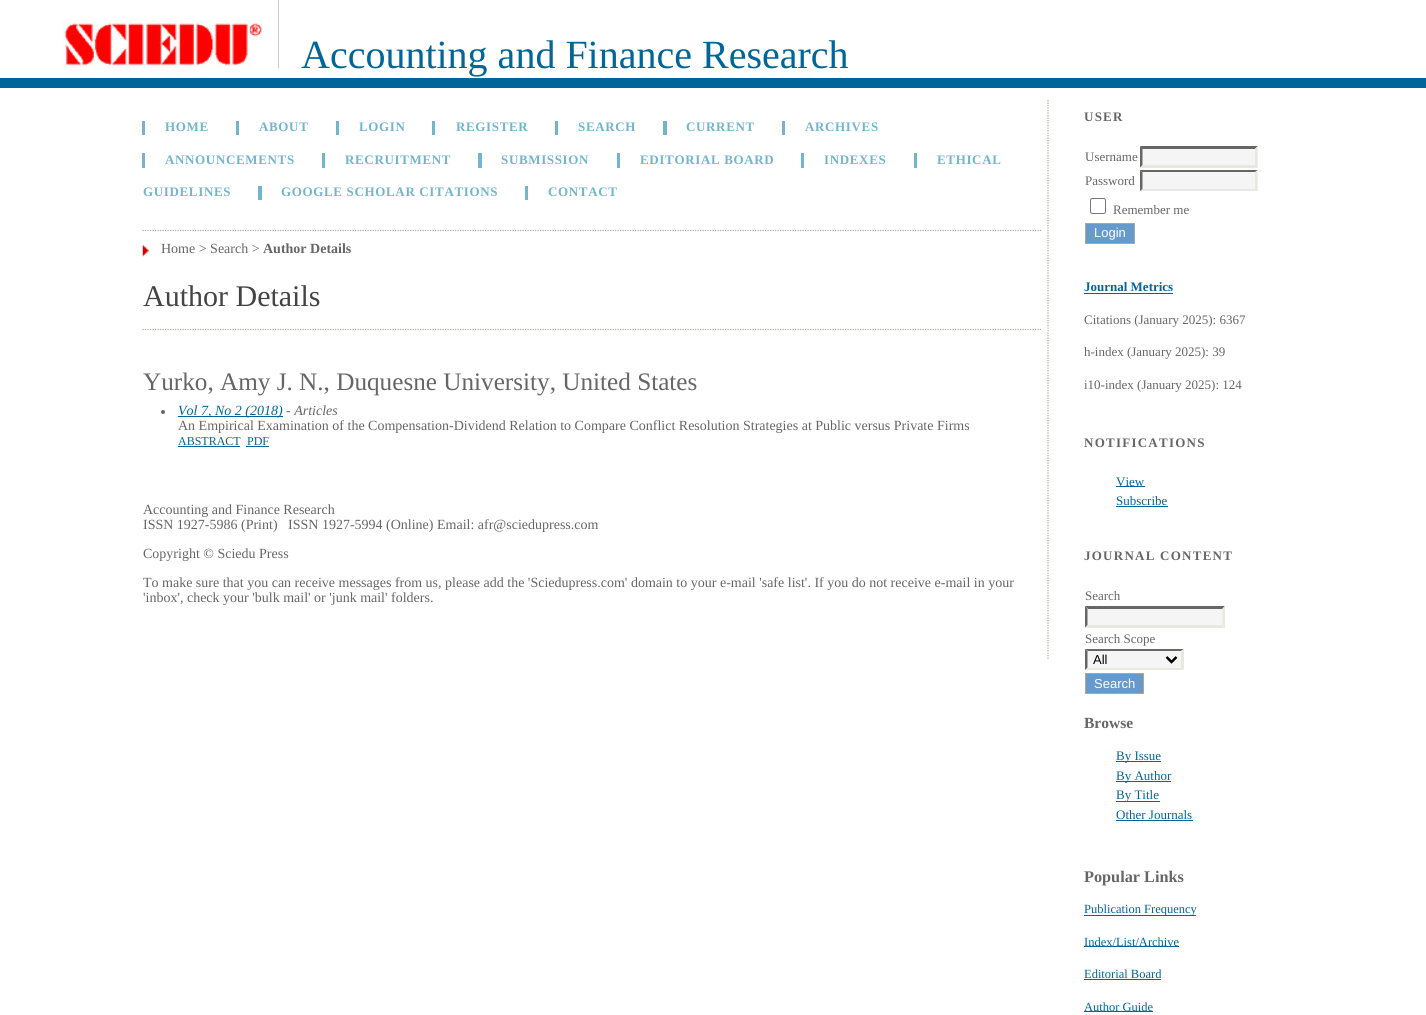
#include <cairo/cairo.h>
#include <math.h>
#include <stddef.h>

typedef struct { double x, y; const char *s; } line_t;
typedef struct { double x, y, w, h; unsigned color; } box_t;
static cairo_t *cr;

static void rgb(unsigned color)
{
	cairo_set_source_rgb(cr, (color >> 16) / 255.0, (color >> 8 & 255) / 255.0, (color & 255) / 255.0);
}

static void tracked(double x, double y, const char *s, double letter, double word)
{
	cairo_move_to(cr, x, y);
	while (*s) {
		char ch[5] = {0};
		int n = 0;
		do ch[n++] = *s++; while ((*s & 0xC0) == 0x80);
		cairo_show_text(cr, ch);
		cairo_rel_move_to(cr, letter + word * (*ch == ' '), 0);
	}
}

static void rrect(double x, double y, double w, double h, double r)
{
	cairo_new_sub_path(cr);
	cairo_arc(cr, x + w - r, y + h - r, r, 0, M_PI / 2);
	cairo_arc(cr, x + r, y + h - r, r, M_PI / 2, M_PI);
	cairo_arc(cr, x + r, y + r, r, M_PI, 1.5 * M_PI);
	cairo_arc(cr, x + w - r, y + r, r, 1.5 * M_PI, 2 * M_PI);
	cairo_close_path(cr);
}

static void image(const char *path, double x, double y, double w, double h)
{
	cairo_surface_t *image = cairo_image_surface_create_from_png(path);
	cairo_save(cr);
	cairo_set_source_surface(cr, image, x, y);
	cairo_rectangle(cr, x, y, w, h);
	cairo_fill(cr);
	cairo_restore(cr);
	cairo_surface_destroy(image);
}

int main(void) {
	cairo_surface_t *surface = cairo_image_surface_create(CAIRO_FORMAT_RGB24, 1426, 1015);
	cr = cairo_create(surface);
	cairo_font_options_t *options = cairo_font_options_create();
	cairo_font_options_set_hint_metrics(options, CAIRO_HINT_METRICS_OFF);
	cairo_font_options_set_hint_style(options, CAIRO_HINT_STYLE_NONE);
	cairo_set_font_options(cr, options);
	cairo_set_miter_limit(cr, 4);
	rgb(0xffffff);
	cairo_paint(cr);
	rgb(0x006699);
	cairo_rectangle(cr, 0, 78, 1426, 10);
	cairo_fill(cr);
	image("img/1.png", 62, 20, 201, 48);
	rgb(0xcccccc);
	cairo_rectangle(cr, 278, 0, 1, 68);
	cairo_fill(cr);
	cairo_new_path(cr);
	cairo_move_to(cr, 1048, 100);
	cairo_line_to(cr, 1048, 659);
	rgb(0xacac9b);
	cairo_set_line_width(cr, 1.2);
	cairo_set_dash(cr, (double[]){1.25, 1.25}, 2, 0);
	cairo_stroke(cr);
	{
		static const box_t items[] = {
			{142, 121, 3, 14, 0x72b5cc},
			{236, 121, 3, 14, 0x72b5cc},
			{336, 121, 3, 14, 0x72b5cc},
			{432, 121, 3, 14, 0x72b5cc},
			{555, 121, 3, 14, 0x72b5cc},
			{663, 121, 4, 14, 0x72b5cc},
			{782, 121, 3, 14, 0x72b5cc},
			{142, 153, 3, 15, 0x72b5cc},
			{322, 153, 3, 15, 0x72b5cc},
			{478, 153, 4, 15, 0x72b5cc},
			{617, 153, 3, 15, 0x72b5cc},
			{801, 153, 3, 15, 0x72b5cc},
			{914, 153, 3, 15, 0x72b5cc},
			{258, 186, 4, 14, 0x72b5cc},
			{525, 186, 3, 14, 0x72b5cc},
		};
		for (size_t i = 0; i < sizeof items / sizeof *items; i++) {
			rgb(items[i].color);
			cairo_rectangle(cr, items[i].x, items[i].y, items[i].w, items[i].h);
			cairo_fill(cr);
		}
	}
	image("img/2.png", 142, 245, 7, 12);
	cairo_new_path(cr);
	cairo_move_to(cr, 142.5, 230.5);
	cairo_line_to(cr, 1041, 230.5);
	rgb(0xacac9b);
	cairo_stroke(cr);
	cairo_new_path(cr);
	cairo_move_to(cr, 142.5, 329.5);
	cairo_line_to(cr, 1041, 329.5);
	cairo_stroke(cr);
	rgb(0x666666);
	cairo_arc(cr, 163, 412, 2, 0, 2 * M_PI);
	cairo_fill(cr);
	{
		static const box_t items[] = {
			{178, 416, 105, 1, 0x006699},
			{178, 446, 62, 1, 0x006699},
			{246, 446, 23, 1, 0x006699},
			{1140, 146, 118, 22, 0xf5f5f5},
		};
		for (size_t i = 0; i < sizeof items / sizeof *items; i++) {
			rgb(items[i].color);
			cairo_rectangle(cr, items[i].x, items[i].y, items[i].w, items[i].h);
			cairo_fill(cr);
		}
	}
	rgb(0x666666);
	cairo_new_path(cr);
	cairo_move_to(cr, 1140, 146);
	cairo_line_to(cr, 1258, 146);
	cairo_line_to(cr, 1255, 149);
	cairo_line_to(cr, 1142, 149);
	cairo_close_path(cr);
	cairo_fill(cr);
	rgb(0xe8e8e1);
	cairo_new_path(cr);
	cairo_move_to(cr, 1257.5, 146);
	cairo_line_to(cr, 1257.5, 167.5);
	cairo_line_to(cr, 1255, 165);
	cairo_line_to(cr, 1255, 149);
	cairo_close_path(cr);
	cairo_fill(cr);
	cairo_new_path(cr);
	cairo_move_to(cr, 1258, 168);
	cairo_line_to(cr, 1140, 168);
	cairo_line_to(cr, 1142, 165);
	cairo_line_to(cr, 1255, 165);
	cairo_close_path(cr);
	cairo_fill(cr);
	rgb(0x666666);
	cairo_new_path(cr);
	cairo_move_to(cr, 1140, 167.5);
	cairo_line_to(cr, 1140, 146);
	cairo_line_to(cr, 1142.5, 149);
	cairo_line_to(cr, 1142.5, 165);
	cairo_close_path(cr);
	cairo_fill(cr);
	rgb(0xf5f5f5);
	cairo_rectangle(cr, 1140, 170, 118, 21);
	cairo_fill(cr);
	rgb(0x666666);
	cairo_new_path(cr);
	cairo_move_to(cr, 1140, 170);
	cairo_line_to(cr, 1258, 170);
	cairo_line_to(cr, 1255, 172);
	cairo_line_to(cr, 1142, 172);
	cairo_close_path(cr);
	cairo_fill(cr);
	rgb(0xe8e8e1);
	cairo_new_path(cr);
	cairo_move_to(cr, 1257.5, 170);
	cairo_line_to(cr, 1257.5, 191);
	cairo_line_to(cr, 1255, 189);
	cairo_line_to(cr, 1255, 172.5);
	cairo_close_path(cr);
	cairo_fill(cr);
	cairo_new_path(cr);
	cairo_move_to(cr, 1258, 191);
	cairo_line_to(cr, 1140, 191);
	cairo_line_to(cr, 1142, 189);
	cairo_line_to(cr, 1255, 189);
	cairo_close_path(cr);
	cairo_fill(cr);
	rgb(0x666666);
	cairo_new_path(cr);
	cairo_move_to(cr, 1140, 191);
	cairo_line_to(cr, 1140, 170);
	cairo_line_to(cr, 1142.5, 172.5);
	cairo_line_to(cr, 1142.5, 189);
	cairo_close_path(cr);
	cairo_fill(cr);
	rrect(1090.5, 198.5, 15, 15, 2);
	rgb(0x767676);
	cairo_set_line_width(cr, 1);
	cairo_set_dash(cr, NULL, 0, 0);
	cairo_stroke(cr);
	rgb(0x6699cc);
	cairo_rectangle(cr, 1085.5, 223.5, 49, 20);
	cairo_fill_preserve(cr);
	rgb(0xaca899);
	cairo_stroke(cr);
	{
		static const box_t items[] = {
			{1084, 293, 89, 1, 0x006699},
			{1116, 486, 29, 1, 0x006699},
			{1116, 506, 52, 1, 0x006699},
			{1085, 606, 140, 22, 0xf5f5f5},
		};
		for (size_t i = 0; i < sizeof items / sizeof *items; i++) {
			rgb(items[i].color);
			cairo_rectangle(cr, items[i].x, items[i].y, items[i].w, items[i].h);
			cairo_fill(cr);
		}
	}
	rgb(0x666666);
	cairo_new_path(cr);
	cairo_move_to(cr, 1085, 606);
	cairo_line_to(cr, 1225, 606);
	cairo_line_to(cr, 1222, 609);
	cairo_line_to(cr, 1088, 609);
	cairo_close_path(cr);
	cairo_fill(cr);
	rgb(0xe8e8e1);
	cairo_new_path(cr);
	cairo_move_to(cr, 1225, 606);
	cairo_line_to(cr, 1225, 627.5);
	cairo_line_to(cr, 1222.5, 625);
	cairo_line_to(cr, 1222.5, 609);
	cairo_close_path(cr);
	cairo_fill(cr);
	cairo_new_path(cr);
	cairo_move_to(cr, 1225, 628);
	cairo_line_to(cr, 1085, 628);
	cairo_line_to(cr, 1088, 625);
	cairo_line_to(cr, 1222, 625);
	cairo_close_path(cr);
	cairo_fill(cr);
	rgb(0x666666);
	cairo_new_path(cr);
	cairo_move_to(cr, 1085, 627.5);
	cairo_line_to(cr, 1085, 606);
	cairo_line_to(cr, 1087.5, 609);
	cairo_line_to(cr, 1087.5, 625);
	cairo_close_path(cr);
	cairo_fill(cr);
	rgb(0xf5f5f5);
	cairo_rectangle(cr, 1085, 649, 99, 21);
	cairo_fill(cr);
	rgb(0x666666);
	cairo_new_path(cr);
	cairo_move_to(cr, 1085, 649);
	cairo_line_to(cr, 1184, 649);
	cairo_line_to(cr, 1181, 651);
	cairo_line_to(cr, 1088, 651);
	cairo_close_path(cr);
	cairo_fill(cr);
	rgb(0xe8e8e1);
	cairo_new_path(cr);
	cairo_move_to(cr, 1184, 649);
	cairo_line_to(cr, 1184, 670);
	cairo_line_to(cr, 1181, 667.5);
	cairo_line_to(cr, 1181, 651);
	cairo_close_path(cr);
	cairo_fill(cr);
	cairo_new_path(cr);
	cairo_move_to(cr, 1184, 670);
	cairo_line_to(cr, 1085, 670);
	cairo_line_to(cr, 1088, 668);
	cairo_line_to(cr, 1181, 668);
	cairo_close_path(cr);
	cairo_fill(cr);
	rgb(0x666666);
	cairo_new_path(cr);
	cairo_move_to(cr, 1085, 670);
	cairo_line_to(cr, 1085, 649);
	cairo_line_to(cr, 1087.5, 651);
	cairo_line_to(cr, 1087.5, 667.5);
	cairo_close_path(cr);
	cairo_fill(cr);
	cairo_new_path(cr);
	cairo_move_to(cr, 1166.5, 657);
	cairo_line_to(cr, 1171.5, 662);
	cairo_line_to(cr, 1176.5, 657);
	rgb(0x000000);
	cairo_set_line_width(cr, 2.5);
	cairo_stroke(cr);
	rgb(0x6699cc);
	cairo_rectangle(cr, 1085.5, 673.5, 58, 20);
	cairo_fill_preserve(cr);
	rgb(0xaca899);
	cairo_set_line_width(cr, 1);
	cairo_stroke(cr);
	{
		static const box_t items[] = {
			{1116, 761, 45, 1, 0x006699},
			{1116, 781, 55, 1, 0x006699},
			{1116, 801, 44, 1, 0x006699},
			{1116, 820, 77, 1, 0x006699},
			{1084, 915, 112, 1, 0x006699},
			{1084, 946, 95, 1, 0x006699},
			{1084, 979, 77, 1, 0x006699},
			{1084, 1011, 69, 1, 0x006699},
		};
		for (size_t i = 0; i < sizeof items / sizeof *items; i++) {
			rgb(items[i].color);
			cairo_rectangle(cr, items[i].x, items[i].y, items[i].w, items[i].h);
			cairo_fill(cr);
		}
	}
	cairo_select_font_face(cr, "Liberation Serif", CAIRO_FONT_SLANT_NORMAL, CAIRO_FONT_WEIGHT_NORMAL);
	cairo_set_font_size(cr, 40);
	cairo_move_to(cr, 301, 68);
	cairo_show_text(cr, "Accounting and Finance Research");
	cairo_select_font_face(cr, "Liberation Serif", CAIRO_FONT_SLANT_NORMAL, CAIRO_FONT_WEIGHT_BOLD);
	cairo_set_font_size(cr, 13);
	rgb(0x72b5cc);
	{
		static const line_t items[] = {
			{165, 131, "HOME"},
			{259, 131, "ABOUT"},
			{359, 131, "LOGIN"},
			{456, 131, "REGISTER"},
			{578, 131, "SEARCH"},
			{686, 131, "CURRENT"},
			{805, 131, "ARCHIVES"},
			{165, 164, "ANNOUNCEMENTS"},
			{345, 164, "RECRUITMENT"},
			{501, 164, "SUBMISSION"},
			{640, 164, "EDITORIAL BOARD"},
			{824, 164, "INDEXES"},
			{937, 164, "ETHICAL"},
			{143, 196, "GUIDELINES"},
			{281, 196, "GOOGLE SCHOLAR CITATIONS"},
			{548, 196, "CONTACT"},
		};
		for (size_t i = 0; i < sizeof items / sizeof *items; i++) {
			tracked(items[i].x, items[i].y, items[i].s, 0.65, 0);
		}
	}
	cairo_select_font_face(cr, "Liberation Serif", CAIRO_FONT_SLANT_NORMAL, CAIRO_FONT_WEIGHT_NORMAL);
	cairo_set_font_size(cr, 14);
	rgb(0x666666);
	cairo_move_to(cr, 161, 253);
	cairo_show_text(cr, "Home > Search >");
	cairo_select_font_face(cr, "Liberation Serif", CAIRO_FONT_SLANT_NORMAL, CAIRO_FONT_WEIGHT_BOLD);
	cairo_move_to(cr, 263, 253);
	cairo_show_text(cr, "Author Details");
	cairo_select_font_face(cr, "Liberation Serif", CAIRO_FONT_SLANT_NORMAL, CAIRO_FONT_WEIGHT_NORMAL);
	cairo_set_font_size(cr, 30);
	rgb(0x444444);
	cairo_move_to(cr, 143, 306);
	cairo_show_text(cr, "Author Details");
	cairo_set_font_size(cr, 25.2);
	rgb(0x666666);
	cairo_move_to(cr, 143, 390);
	cairo_show_text(cr, "Yurko, Amy J. N., Duquesne University, United States");
	cairo_select_font_face(cr, "Liberation Serif", CAIRO_FONT_SLANT_ITALIC, CAIRO_FONT_WEIGHT_NORMAL);
	cairo_set_font_size(cr, 14);
	rgb(0x006699);
	cairo_move_to(cr, 178, 415);
	cairo_show_text(cr, "Vol 7, No 2 (2018)");
	rgb(0x666666);
	cairo_move_to(cr, 286, 415);
	cairo_show_text(cr, "- Articles");
	cairo_select_font_face(cr, "Liberation Serif", CAIRO_FONT_SLANT_NORMAL, CAIRO_FONT_WEIGHT_NORMAL);
	cairo_move_to(cr, 178, 430);
	cairo_show_text(cr, "An Empirical Examination of the Compensation-Dividend Relation to Compare Conflict Resolution Strategies at Public versus Private Firms");
	cairo_set_font_size(cr, 12);
	rgb(0x006699);
	cairo_move_to(cr, 178, 445);
	cairo_show_text(cr, "ABSTRACT");
	cairo_move_to(cr, 247, 445);
	cairo_show_text(cr, "PDF");
	cairo_set_font_size(cr, 14);
	rgb(0x666666);
	{
		static const line_t items[] = {
			{143, 514, "Accounting and Finance Research"},
			{143, 529, "ISSN 1927-5986 (Print)   ISSN 1927-5994 (Online) Email: afr@sciedupress.com"},
			{143, 558, "Copyright © Sciedu Press"},
			{143, 587, "To make sure that you can receive messages from us, please add the 'Sciedupress.com' domain to your e-mail 'safe list'. If you do not receive e-mail in your"},
			{143, 602, "'inbox', check your 'bulk mail' or 'junk mail' folders."},
		};
		for (size_t i = 0; i < sizeof items / sizeof *items; i++) {
			cairo_move_to(cr, items[i].x, items[i].y);
			cairo_show_text(cr, items[i].s);
		}
	}
	cairo_select_font_face(cr, "Liberation Serif", CAIRO_FONT_SLANT_NORMAL, CAIRO_FONT_WEIGHT_BOLD);
	cairo_set_font_size(cr, 13);
	tracked(1084, 121, "USER", 1.25, 0);
	cairo_select_font_face(cr, "Liberation Serif", CAIRO_FONT_SLANT_NORMAL, CAIRO_FONT_WEIGHT_NORMAL);
	{
		static const line_t items[] = {
			{1085, 161, "Username"},
			{1085, 185, "Password"},
			{1113, 214, "Remember me"},
		};
		for (size_t i = 0; i < sizeof items / sizeof *items; i++) {
			cairo_move_to(cr, items[i].x, items[i].y);
			cairo_show_text(cr, items[i].s);
		}
	}
	cairo_select_font_face(cr, "Liberation Sans", CAIRO_FONT_SLANT_NORMAL, CAIRO_FONT_WEIGHT_NORMAL);
	rgb(0xffffff);
	cairo_move_to(cr, 1094, 237);
	cairo_show_text(cr, "Login");
	cairo_select_font_face(cr, "Liberation Serif", CAIRO_FONT_SLANT_NORMAL, CAIRO_FONT_WEIGHT_BOLD);
	rgb(0x006699);
	cairo_move_to(cr, 1084, 291);
	cairo_show_text(cr, "Journal Metrics");
	cairo_select_font_face(cr, "Liberation Serif", CAIRO_FONT_SLANT_NORMAL, CAIRO_FONT_WEIGHT_NORMAL);
	rgb(0x666666);
	{
		static const line_t items[] = {
			{1084, 324, "Citations (January 2025): 6367"},
			{1084, 356, "h-index (January 2025): 39"},
			{1084, 389, "i10-index (January 2025): 124"},
		};
		for (size_t i = 0; i < sizeof items / sizeof *items; i++) {
			cairo_move_to(cr, items[i].x, items[i].y);
			cairo_show_text(cr, items[i].s);
		}
	}
	cairo_select_font_face(cr, "Liberation Serif", CAIRO_FONT_SLANT_NORMAL, CAIRO_FONT_WEIGHT_BOLD);
	tracked(1084, 447, "NOTIFICATIONS", 1.25, 0);
	cairo_select_font_face(cr, "Liberation Serif", CAIRO_FONT_SLANT_NORMAL, CAIRO_FONT_WEIGHT_NORMAL);
	rgb(0x006699);
	cairo_move_to(cr, 1116, 486);
	cairo_show_text(cr, "View");
	cairo_move_to(cr, 1116, 505);
	cairo_show_text(cr, "Subscribe");
	cairo_select_font_face(cr, "Liberation Serif", CAIRO_FONT_SLANT_NORMAL, CAIRO_FONT_WEIGHT_BOLD);
	rgb(0x666666);
	tracked(1084, 560, "JOURNAL CONTENT", 1.25, 0);
	cairo_select_font_face(cr, "Liberation Serif", CAIRO_FONT_SLANT_NORMAL, CAIRO_FONT_WEIGHT_NORMAL);
	cairo_move_to(cr, 1085, 600);
	cairo_show_text(cr, "Search");
	cairo_move_to(cr, 1085, 643);
	cairo_show_text(cr, "Search Scope");
	cairo_select_font_face(cr, "Liberation Sans", CAIRO_FONT_SLANT_NORMAL, CAIRO_FONT_WEIGHT_NORMAL);
	rgb(0x000000);
	cairo_move_to(cr, 1093, 664);
	cairo_show_text(cr, "All");
	rgb(0xffffff);
	cairo_move_to(cr, 1094, 688);
	cairo_show_text(cr, "Search");
	cairo_select_font_face(cr, "Liberation Serif", CAIRO_FONT_SLANT_NORMAL, CAIRO_FONT_WEIGHT_BOLD);
	cairo_set_font_size(cr, 15.5);
	rgb(0x666666);
	cairo_move_to(cr, 1084, 728);
	cairo_show_text(cr, "Browse");
	cairo_select_font_face(cr, "Liberation Serif", CAIRO_FONT_SLANT_NORMAL, CAIRO_FONT_WEIGHT_NORMAL);
	cairo_set_font_size(cr, 13);
	rgb(0x006699);
	{
		static const line_t items[] = {
			{1116, 760, "By Issue"},
			{1116, 780, "By Author"},
			{1116, 799, "By Title"},
			{1116, 819, "Other Journals"},
		};
		for (size_t i = 0; i < sizeof items / sizeof *items; i++) {
			cairo_move_to(cr, items[i].x, items[i].y);
			cairo_show_text(cr, items[i].s);
		}
	}
	cairo_select_font_face(cr, "Liberation Serif", CAIRO_FONT_SLANT_NORMAL, CAIRO_FONT_WEIGHT_BOLD);
	cairo_set_font_size(cr, 16.25);
	rgb(0x666666);
	cairo_move_to(cr, 1084, 882);
	cairo_show_text(cr, "Popular Links");
	cairo_select_font_face(cr, "Liberation Serif", CAIRO_FONT_SLANT_NORMAL, CAIRO_FONT_WEIGHT_NORMAL);
	cairo_set_font_size(cr, 12.5);
	rgb(0x006699);
	{
		static const line_t items[] = {
			{1084, 913, "Publication Frequency"},
			{1084, 946, "Index/List/Archive"},
			{1084, 978, "Editorial Board"},
			{1084, 1011, "Author Guide"},
		};
		for (size_t i = 0; i < sizeof items / sizeof *items; i++) {
			cairo_move_to(cr, items[i].x, items[i].y);
			cairo_show_text(cr, items[i].s);
		}
	}
	cairo_surface_write_to_png(surface, "page.png");
	cairo_font_options_destroy(options);
	cairo_destroy(cr);
	cairo_surface_destroy(surface);
	return 0;
}
